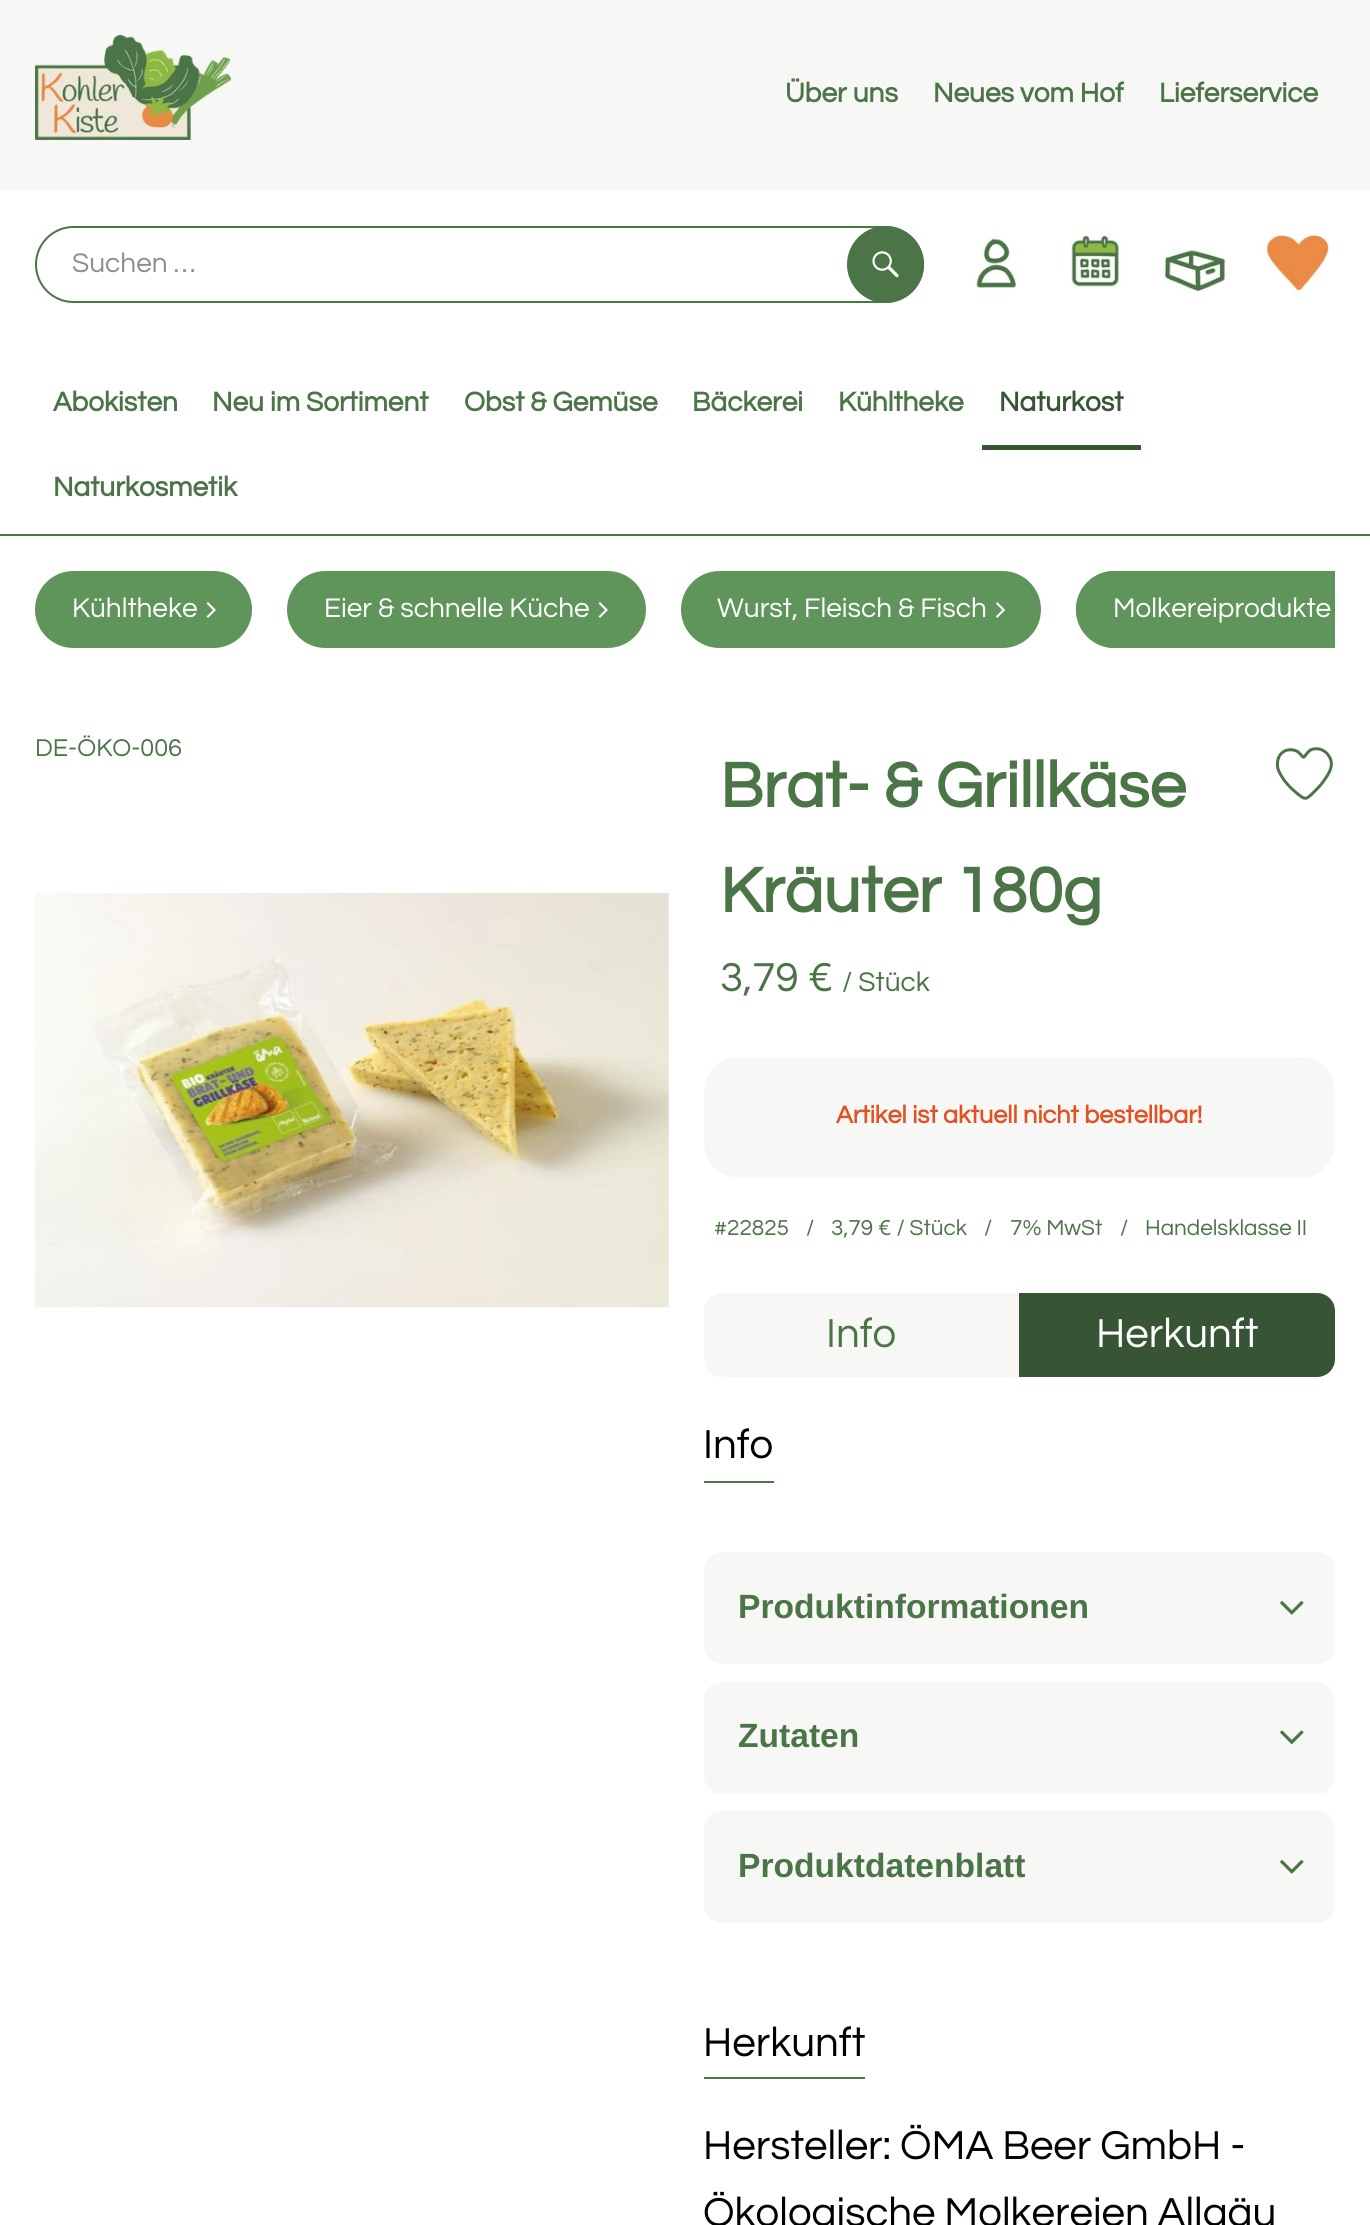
#include <cairo/cairo.h>
#include <math.h>
#include <stddef.h>

typedef struct { double x, y; const char *s; } line_t;
static cairo_t *cr;

static void rgb(unsigned color)
{
	cairo_set_source_rgb(cr, (color >> 16) / 255.0, (color >> 8 & 255) / 255.0, (color & 255) / 255.0);
}

static void rrect(double x, double y, double w, double h, double r)
{
	cairo_new_sub_path(cr);
	cairo_arc(cr, x + w - r, y + h - r, r, 0, M_PI / 2);
	cairo_arc(cr, x + r, y + h - r, r, M_PI / 2, M_PI);
	cairo_arc(cr, x + r, y + r, r, M_PI, 1.5 * M_PI);
	cairo_arc(cr, x + w - r, y + r, r, 1.5 * M_PI, 2 * M_PI);
	cairo_close_path(cr);
}

static void image(const char *path, double x, double y, double w, double h)
{
	cairo_surface_t *image = cairo_image_surface_create_from_png(path);
	cairo_save(cr);
	cairo_set_source_surface(cr, image, x, y);
	cairo_rectangle(cr, x, y, w, h);
	cairo_fill(cr);
	cairo_restore(cr);
	cairo_surface_destroy(image);
}

int main(void) {
	cairo_surface_t *surface = cairo_image_surface_create(CAIRO_FORMAT_RGB24, 1370, 2225);
	cr = cairo_create(surface);
	cairo_font_options_t *options = cairo_font_options_create();
	cairo_font_options_set_hint_metrics(options, CAIRO_HINT_METRICS_OFF);
	cairo_font_options_set_hint_style(options, CAIRO_HINT_STYLE_NONE);
	cairo_set_font_options(cr, options);
	cairo_set_miter_limit(cr, 4);
	rgb(0xffffff);
	cairo_paint(cr);
	rgb(0xf7f7f5);
	cairo_rectangle(cr, 0, 0, 1370, 191);
	cairo_fill(cr);
	image("img/1.png", 35, 35, 196, 105);
	rrect(36, 227, 887, 75, 37.5);
	rgb(0x4b7447);
	cairo_stroke(cr);
	cairo_arc(cr, 885.5, 264.5, 37.5, 0, 2 * M_PI);
	cairo_fill_preserve(cr);
	cairo_stroke(cr);
	image("img/2.png", 872, 251, 27, 27);
	image("img/3.png", 975, 238, 42, 51);
	image("img/4.png", 1071, 234, 50, 54);
	image("img/5.png", 1163, 249, 63, 44);
	image("img/6.png", 1262, 233, 67, 58);
	cairo_rectangle(cr, 0, 534, 1370, 2);
	cairo_fill(cr);
	rgb(0x375434);
	cairo_rectangle(cr, 982, 445, 159, 5);
	cairo_fill(cr);
	rgb(0x5f945a);
	rrect(36, 572, 215, 75, 37.5);
	cairo_fill_preserve(cr);
	cairo_stroke(cr);
	image("img/7.png", 206, 602, 10, 16);
	rrect(288, 572, 357, 75, 37.5);
	cairo_fill_preserve(cr);
	cairo_stroke(cr);
	image("img/7.png", 598, 602, 10, 16);
	rrect(682, 572, 358, 75, 37.5);
	cairo_fill_preserve(cr);
	cairo_stroke(cr);
	image("img/8.png", 996, 602, 9, 16);
	cairo_new_path(cr);
	cairo_move_to(cr, 1114.5, 571);
	cairo_line_to(cr, 1335, 571);
	cairo_line_to(cr, 1335, 648);
	cairo_line_to(cr, 1114.5, 648);
	cairo_curve_to(cr, 1093, 648, 1076, 631, 1076, 609.5);
	cairo_curve_to(cr, 1076, 588, 1093, 571, 1114.5, 571);
	cairo_close_path(cr);
	cairo_fill(cr);
	cairo_save(cr);
	cairo_rectangle(cr, 35, 536, 1300, 147);
	cairo_clip(cr);
	rrect(1077, 572, 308, 75, 37.5);
	cairo_stroke(cr);
	cairo_restore(cr);
	image("img/9.png", 1275, 747, 58, 53);
	image("img/10.png", 35, 893, 634, 415);
	rgb(0xf7f7f5);
	rrect(704, 1057, 631, 121, 35);
	cairo_fill(cr);
	cairo_new_path(cr);
	cairo_move_to(cr, 722, 1293);
	cairo_line_to(cr, 1019, 1293);
	cairo_line_to(cr, 1019, 1377);
	cairo_line_to(cr, 722, 1377);
	cairo_curve_to(cr, 712, 1377, 704, 1369, 704, 1359);
	cairo_line_to(cr, 704, 1311);
	cairo_curve_to(cr, 704, 1301, 712, 1293, 722, 1293);
	cairo_close_path(cr);
	cairo_fill(cr);
	rgb(0x375434);
	cairo_new_path(cr);
	cairo_move_to(cr, 1019, 1293);
	cairo_line_to(cr, 1317, 1293);
	cairo_curve_to(cr, 1327, 1293, 1335, 1301, 1335, 1311);
	cairo_line_to(cr, 1335, 1359);
	cairo_curve_to(cr, 1335, 1369, 1327, 1377, 1317, 1377);
	cairo_line_to(cr, 1019, 1377);
	cairo_close_path(cr);
	cairo_fill(cr);
	rgb(0x4b7447);
	cairo_rectangle(cr, 704, 1481, 70, 2);
	cairo_fill(cr);
	rgb(0xf7f7f5);
	rrect(704, 1552, 631, 112, 18);
	cairo_fill(cr);
	image("img/11.png", 1280, 1601, 24, 14);
	rrect(704, 1682, 631, 112, 18);
	cairo_fill(cr);
	image("img/12.png", 1280, 1730, 24, 15);
	rrect(704, 1811, 631, 112, 18);
	cairo_fill(cr);
	image("img/11.png", 1280, 1860, 24, 14);
	rgb(0x4b7447);
	cairo_rectangle(cr, 704, 2077, 161, 2);
	cairo_fill(cr);
	cairo_select_font_face(cr, "Questrial", CAIRO_FONT_SLANT_NORMAL, CAIRO_FONT_WEIGHT_BOLD);
	cairo_set_font_size(cr, 28);
	{
		static const line_t items[] = {
			{785, 102, "Über uns"},
			{933, 102, "Neues vom Hof"},
			{1159, 102, "Lieferservice"},
		};
		for (size_t i = 0; i < sizeof items / sizeof *items; i++) {
			cairo_move_to(cr, items[i].x, items[i].y);
			cairo_show_text(cr, items[i].s);
		}
	}
	cairo_select_font_face(cr, "Questrial", CAIRO_FONT_SLANT_NORMAL, CAIRO_FONT_WEIGHT_NORMAL);
	rgb(0x8e8e8e);
	cairo_move_to(cr, 72, 272);
	cairo_show_text(cr, "Suchen …");
	cairo_select_font_face(cr, "Questrial", CAIRO_FONT_SLANT_NORMAL, CAIRO_FONT_WEIGHT_BOLD);
	rgb(0x4b7447);
	{
		static const line_t items[] = {
			{53, 411, "Abokisten"},
			{212, 411, "Neu im Sortiment"},
			{464, 411, "Obst & Gemüse"},
			{692, 411, "Bäckerei"},
			{838, 411, "Kühltheke"},
		};
		for (size_t i = 0; i < sizeof items / sizeof *items; i++) {
			cairo_move_to(cr, items[i].x, items[i].y);
			cairo_show_text(cr, items[i].s);
		}
	}
	rgb(0x375434);
	cairo_move_to(cr, 999, 411);
	cairo_show_text(cr, "Naturkost");
	rgb(0x4b7447);
	cairo_move_to(cr, 53, 496);
	cairo_show_text(cr, "Naturkosmetik");
	cairo_select_font_face(cr, "Questrial", CAIRO_FONT_SLANT_NORMAL, CAIRO_FONT_WEIGHT_NORMAL);
	rgb(0xffffff);
	{
		static const line_t items[] = {
			{72, 617, "Kühltheke"},
			{324, 617, "Eier & schnelle Küche"},
			{717, 617, "Wurst, Fleisch & Fisch"},
			{1113, 617, "Molkereiprodukte"},
		};
		for (size_t i = 0; i < sizeof items / sizeof *items; i++) {
			cairo_move_to(cr, items[i].x, items[i].y);
			cairo_show_text(cr, items[i].s);
		}
	}
	cairo_set_font_size(cr, 25.25);
	rgb(0x4b7447);
	cairo_move_to(cr, 35, 756);
	cairo_show_text(cr, "DE-ÖKO-006");
	cairo_select_font_face(cr, "Questrial", CAIRO_FONT_SLANT_NORMAL, CAIRO_FONT_WEIGHT_BOLD);
	cairo_set_font_size(cr, 65.5);
	cairo_move_to(cr, 720, 807);
	cairo_show_text(cr, "Brat- & Grillkäse");
	cairo_move_to(cr, 720, 912);
	cairo_show_text(cr, "Kräuter 180g");
	cairo_select_font_face(cr, "Questrial", CAIRO_FONT_SLANT_NORMAL, CAIRO_FONT_WEIGHT_NORMAL);
	cairo_set_font_size(cr, 42);
	cairo_move_to(cr, 720, 991);
	cairo_show_text(cr, "3,79 €");
	cairo_set_font_size(cr, 28);
	cairo_move_to(cr, 842, 991);
	cairo_show_text(cr, "/ Stück");
	cairo_select_font_face(cr, "Questrial", CAIRO_FONT_SLANT_NORMAL, CAIRO_FONT_WEIGHT_BOLD);
	cairo_set_font_size(cr, 25.25);
	rgb(0xe05224);
	cairo_move_to(cr, 836, 1123);
	cairo_show_text(cr, "Artikel ist aktuell nicht bestellbar!");
	cairo_select_font_face(cr, "Questrial", CAIRO_FONT_SLANT_NORMAL, CAIRO_FONT_WEIGHT_NORMAL);
	cairo_set_font_size(cr, 22.5);
	rgb(0x4b7447);
	{
		static const line_t items[] = {
			{714, 1235, "#22825"},
			{806, 1235, "/"},
			{831, 1235, "3,79 € / Stück"},
			{984, 1235, "/"},
			{1010, 1235, "7% MwSt"},
			{1120, 1235, "/"},
			{1145, 1235, "Handelsklasse II"},
		};
		for (size_t i = 0; i < sizeof items / sizeof *items; i++) {
			cairo_move_to(cr, items[i].x, items[i].y);
			cairo_show_text(cr, items[i].s);
		}
	}
	cairo_set_font_size(cr, 42);
	cairo_move_to(cr, 826, 1347);
	cairo_show_text(cr, "Info");
	rgb(0xffffff);
	cairo_move_to(cr, 1096, 1347);
	cairo_show_text(cr, "Herkunft");
	rgb(0x000000);
	cairo_move_to(cr, 703, 1458);
	cairo_show_text(cr, "Info");
	cairo_select_font_face(cr, "Liberation Sans", CAIRO_FONT_SLANT_NORMAL, CAIRO_FONT_WEIGHT_BOLD);
	cairo_set_font_size(cr, 33.6);
	rgb(0x4b7447);
	{
		static const line_t items[] = {
			{738, 1618, "Produktinformationen"},
			{738, 1747, "Zutaten"},
			{738, 1877, "Produktdatenblatt"},
		};
		for (size_t i = 0; i < sizeof items / sizeof *items; i++) {
			cairo_move_to(cr, items[i].x, items[i].y);
			cairo_show_text(cr, items[i].s);
		}
	}
	cairo_select_font_face(cr, "Questrial", CAIRO_FONT_SLANT_NORMAL, CAIRO_FONT_WEIGHT_NORMAL);
	cairo_set_font_size(cr, 42);
	rgb(0x000000);
	{
		static const line_t items[] = {
			{703, 2056, "Herkunft"},
			{703, 2159, "Hersteller: ÖMA Beer GmbH -"},
			{703, 2226, "Ökologische Molkereien Allgäu"},
		};
		for (size_t i = 0; i < sizeof items / sizeof *items; i++) {
			cairo_move_to(cr, items[i].x, items[i].y);
			cairo_show_text(cr, items[i].s);
		}
	}
	cairo_surface_write_to_png(surface, "page.png");
	cairo_font_options_destroy(options);
	cairo_destroy(cr);
	cairo_surface_destroy(surface);
	return 0;
}
